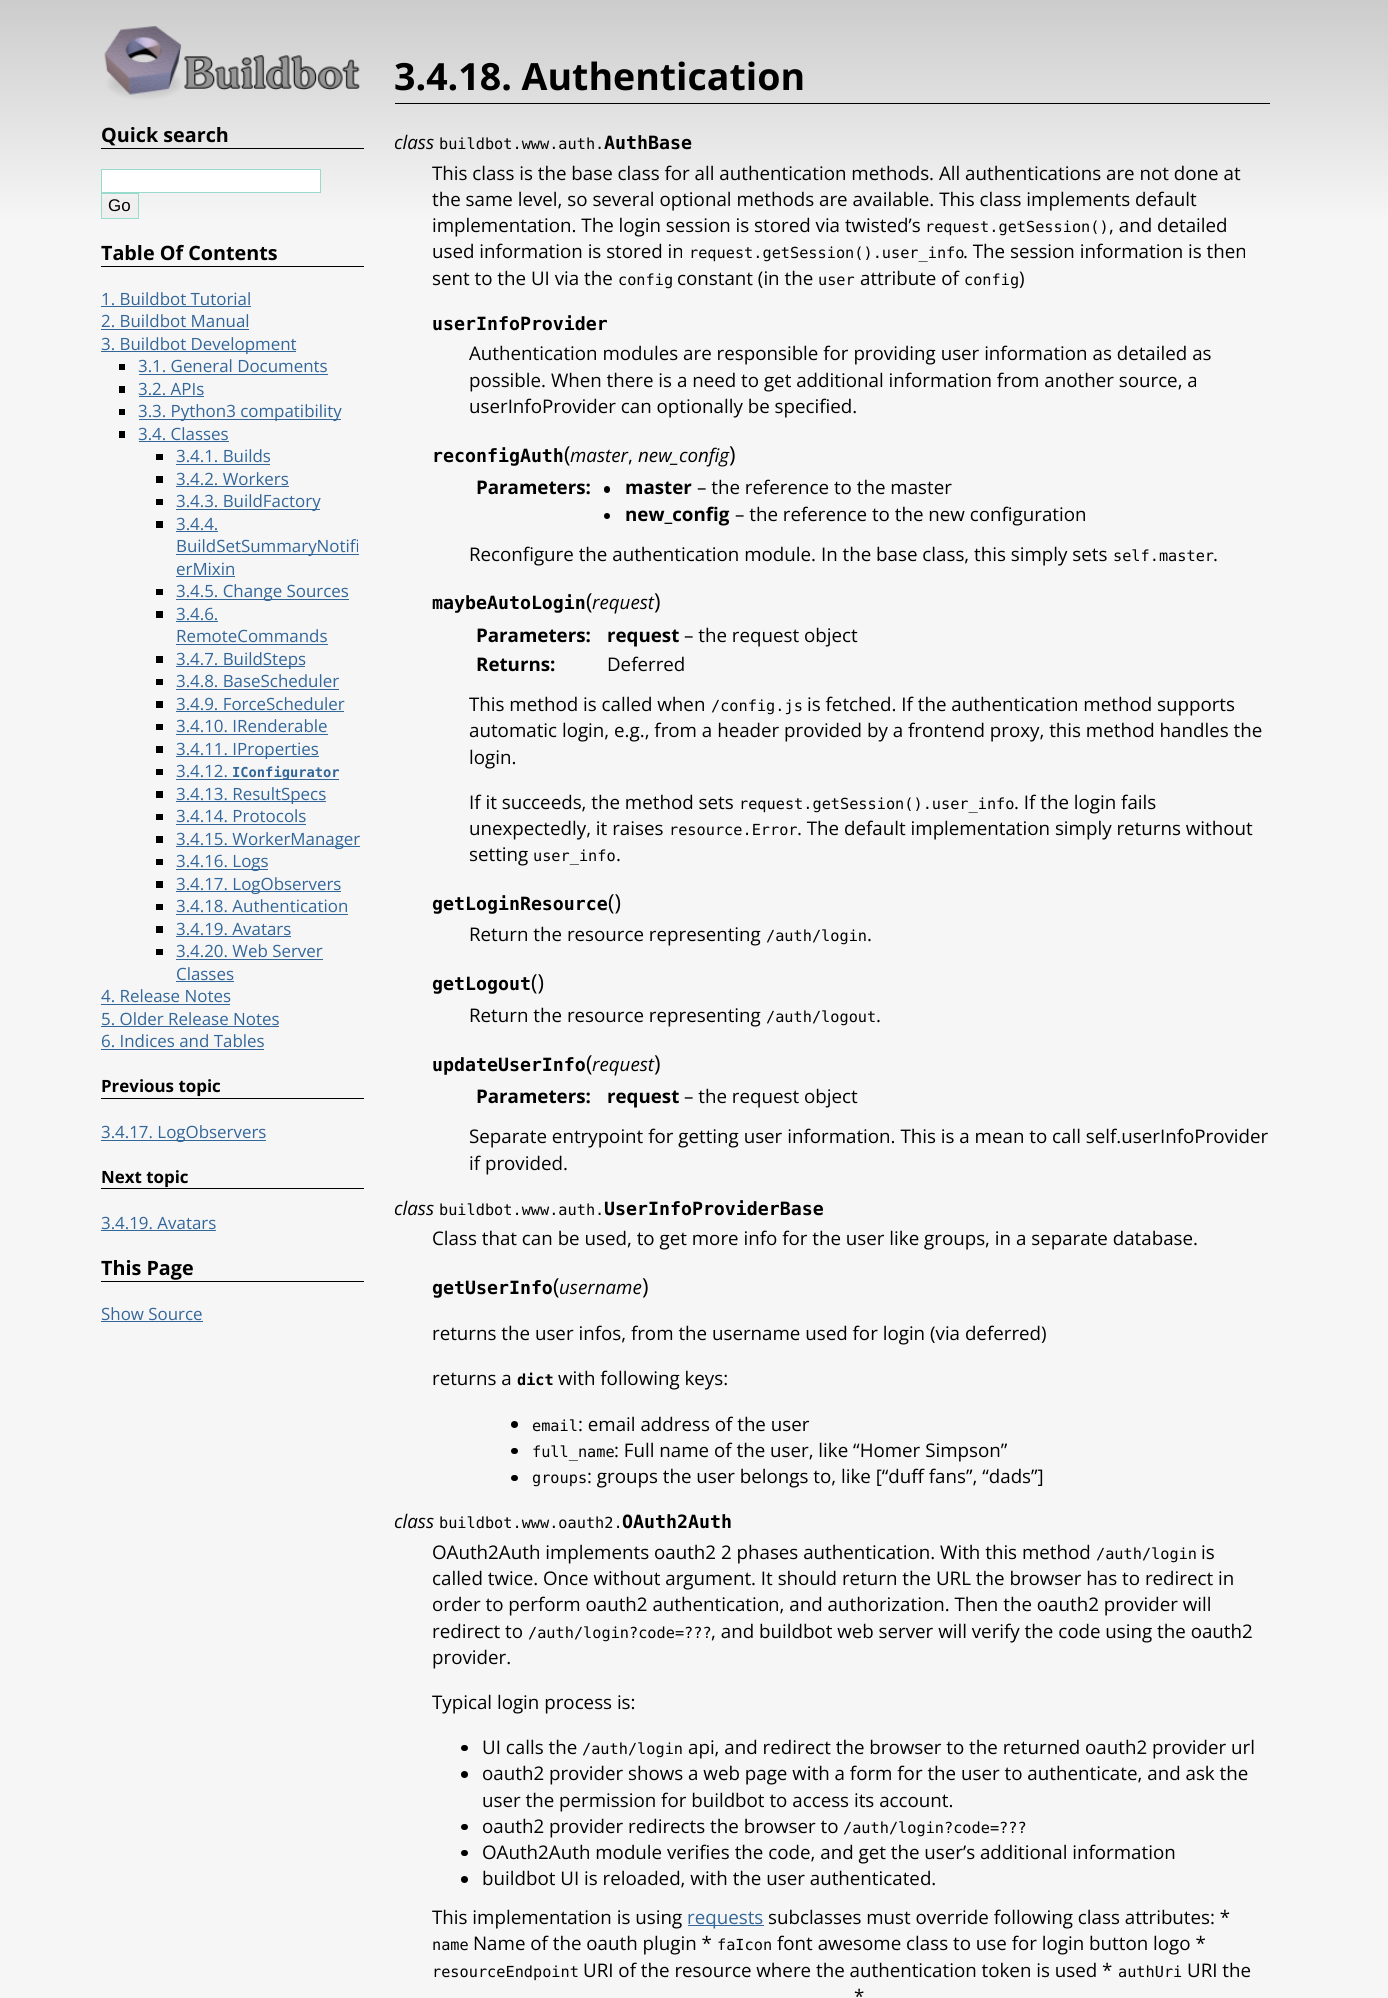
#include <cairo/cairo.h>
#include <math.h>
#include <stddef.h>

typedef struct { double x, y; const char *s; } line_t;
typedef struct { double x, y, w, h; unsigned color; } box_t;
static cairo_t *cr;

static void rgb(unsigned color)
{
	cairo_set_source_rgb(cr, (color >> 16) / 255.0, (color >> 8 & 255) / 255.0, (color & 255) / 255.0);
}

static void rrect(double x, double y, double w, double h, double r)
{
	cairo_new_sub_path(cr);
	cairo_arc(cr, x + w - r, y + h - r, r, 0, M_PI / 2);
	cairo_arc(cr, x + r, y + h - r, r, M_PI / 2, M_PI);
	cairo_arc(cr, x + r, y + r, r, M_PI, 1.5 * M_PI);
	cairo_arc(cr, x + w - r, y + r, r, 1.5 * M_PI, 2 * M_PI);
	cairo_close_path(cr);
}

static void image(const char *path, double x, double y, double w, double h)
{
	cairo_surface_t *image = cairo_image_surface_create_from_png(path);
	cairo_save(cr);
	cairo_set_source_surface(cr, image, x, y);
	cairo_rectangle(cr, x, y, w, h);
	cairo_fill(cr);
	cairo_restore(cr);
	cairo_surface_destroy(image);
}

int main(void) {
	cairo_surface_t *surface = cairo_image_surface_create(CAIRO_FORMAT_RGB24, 1388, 1998);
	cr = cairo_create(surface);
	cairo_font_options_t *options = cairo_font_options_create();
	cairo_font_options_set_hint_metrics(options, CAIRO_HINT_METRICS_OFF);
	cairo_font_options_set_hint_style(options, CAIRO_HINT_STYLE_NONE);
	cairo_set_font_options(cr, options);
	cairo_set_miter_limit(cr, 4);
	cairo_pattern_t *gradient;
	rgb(0xffffff);
	cairo_paint(cr);
	gradient = cairo_pattern_create_linear(694, 0, 694, 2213);
	cairo_pattern_add_color_stop_rgba(gradient, 0, 0.8, 0.8, 0.8, 1);
	cairo_pattern_add_color_stop_rgba(gradient, 0.1, 0.965, 0.965, 0.965, 1);
	cairo_set_source(cr, gradient);
	cairo_pattern_destroy(gradient);
	cairo_rectangle(cr, 0, 0, 1388, 1998);
	cairo_fill(cr);
	image("img/1.png", 104, 26, 256, 74);
	rgb(0x000000);
	cairo_rectangle(cr, 101, 148, 263, 1);
	cairo_fill(cr);
	rgb(0xffffff);
	cairo_rectangle(cr, 101.5, 169.5, 219, 23);
	cairo_fill_preserve(cr);
	rgb(0x98dbcc);
	cairo_set_line_width(cr, 1);
	cairo_stroke(cr);
	rgb(0xefefef);
	cairo_rectangle(cr, 102, 198, 36, 20);
	cairo_fill(cr);
	cairo_rectangle(cr, 101.5, 193.5, 37, 25);
	rgb(0x98dbcc);
	cairo_stroke(cr);
	{
		static const box_t items[] = {
			{101, 266, 263, 1, 0x000000},
			{101, 306, 150, 1, 0x336699},
			{101, 329, 148, 1, 0x336699},
			{101, 351, 195, 1, 0x336699},
			{119, 364, 6, 6, 0x000000},
			{139, 374, 189, 1, 0x336699},
			{119, 386, 6, 7, 0x000000},
			{139, 396, 65, 1, 0x336699},
			{119, 409, 6, 6, 0x000000},
			{139, 419, 202, 1, 0x336699},
			{119, 431, 6, 7, 0x000000},
			{139, 441, 90, 1, 0x336699},
			{156, 454, 7, 6, 0x000000},
			{176, 464, 94, 1, 0x336699},
			{156, 476, 7, 7, 0x000000},
			{176, 486, 113, 1, 0x336699},
			{156, 499, 7, 6, 0x000000},
			{176, 509, 144, 1, 0x336699},
			{156, 521, 7, 7, 0x000000},
			{176, 531, 42, 1, 0x336699},
			{176, 554, 183, 1, 0x336699},
			{176, 576, 59, 1, 0x336699},
			{156, 589, 7, 6, 0x000000},
			{176, 599, 173, 1, 0x336699},
			{156, 611, 7, 7, 0x000000},
			{176, 621, 42, 1, 0x336699},
			{176, 644, 152, 1, 0x336699},
			{156, 656, 7, 7, 0x000000},
			{176, 666, 129, 1, 0x336699},
			{156, 679, 7, 6, 0x000000},
			{176, 689, 163, 1, 0x336699},
			{156, 701, 7, 7, 0x000000},
			{176, 711, 168, 1, 0x336699},
			{156, 724, 7, 6, 0x000000},
			{176, 734, 152, 1, 0x336699},
			{156, 746, 7, 7, 0x000000},
			{176, 756, 143, 1, 0x336699},
			{156, 769, 7, 6, 0x000000},
			{176, 779, 163, 1, 0x336699},
			{156, 791, 7, 7, 0x000000},
			{176, 801, 150, 1, 0x336699},
			{156, 814, 7, 6, 0x000000},
			{176, 824, 130, 1, 0x336699},
			{156, 836, 7, 7, 0x000000},
			{176, 846, 184, 1, 0x336699},
			{156, 859, 7, 6, 0x000000},
			{176, 869, 92, 1, 0x336699},
			{156, 881, 7, 7, 0x000000},
			{176, 891, 165, 1, 0x336699},
			{156, 904, 7, 6, 0x000000},
			{176, 914, 172, 1, 0x336699},
			{156, 926, 7, 7, 0x000000},
			{176, 936, 115, 1, 0x336699},
			{156, 949, 7, 6, 0x000000},
			{176, 959, 147, 1, 0x336699},
			{176, 981, 58, 1, 0x336699},
			{101, 1004, 129, 1, 0x336699},
			{101, 1026, 178, 1, 0x336699},
			{101, 1049, 163, 1, 0x336699},
			{101, 1098, 263, 1, 0x000000},
			{101, 1140, 165, 1, 0x336699},
			{101, 1188, 263, 1, 0x000000},
			{101, 1230, 115, 1, 0x336699},
			{101, 1281, 263, 1, 0x000000},
			{101, 1321, 102, 1, 0x336699},
			{395, 103, 875, 1, 0x000000},
		};
		for (size_t i = 0; i < sizeof items / sizeof *items; i++) {
			rgb(items[i].color);
			cairo_rectangle(cr, items[i].x, items[i].y, items[i].w, items[i].h);
			cairo_fill(cr);
		}
	}
	rrect(604, 486, 6, 7, 3);
	cairo_fill(cr);
	cairo_arc(cr, 607, 516, 3, 0, 2 * M_PI);
	cairo_fill(cr);
	cairo_arc(cr, 514.5, 1424.5, 3.5, 0, 2 * M_PI);
	cairo_fill(cr);
	rrect(511, 1448, 7, 6, 3);
	cairo_fill(cr);
	rrect(511, 1475, 7, 6, 3);
	cairo_fill(cr);
	rrect(461, 1745, 7, 6, 3);
	cairo_fill(cr);
	cairo_arc(cr, 464.5, 1774.5, 3.5, 0, 2 * M_PI);
	cairo_fill(cr);
	rrect(461, 1824, 7, 6, 3);
	cairo_fill(cr);
	rrect(461, 1850, 7, 6, 3);
	cairo_fill(cr);
	cairo_arc(cr, 464.5, 1879.5, 3.5, 0, 2 * M_PI);
	cairo_fill(cr);
	rgb(0x336699);
	cairo_rectangle(cr, 688, 1925, 76, 1);
	cairo_fill(cr);
	cairo_select_font_face(cr, "Open Sans", CAIRO_FONT_SLANT_NORMAL, CAIRO_FONT_WEIGHT_BOLD);
	cairo_set_font_size(cr, 19.75);
	rgb(0x000000);
	cairo_move_to(cr, 101, 142);
	cairo_show_text(cr, "Quick search");
	cairo_select_font_face(cr, "Liberation Sans", CAIRO_FONT_SLANT_NORMAL, CAIRO_FONT_WEIGHT_NORMAL);
	cairo_set_font_size(cr, 16.9);
	cairo_move_to(cr, 108, 211);
	cairo_show_text(cr, "Go");
	cairo_select_font_face(cr, "Open Sans", CAIRO_FONT_SLANT_NORMAL, CAIRO_FONT_WEIGHT_BOLD);
	cairo_set_font_size(cr, 19.75);
	cairo_move_to(cr, 101, 260);
	cairo_show_text(cr, "Table Of Contents");
	cairo_select_font_face(cr, "Open Sans", CAIRO_FONT_SLANT_NORMAL, CAIRO_FONT_WEIGHT_NORMAL);
	cairo_set_font_size(cr, 16.9);
	rgb(0x336699);
	{
		static const line_t items[] = {
			{101, 305, "1. Buildbot Tutorial"},
			{101, 327, "2. Buildbot Manual"},
			{101, 350, "3. Buildbot Development"},
			{138, 372, "3.1. General Documents"},
			{138, 395, "3.2. APIs"},
			{138, 417, "3.3. Python3 compatibility"},
			{138, 440, "3.4. Classes"},
			{176, 462, "3.4.1. Builds"},
			{176, 485, "3.4.2. Workers"},
			{176, 507, "3.4.3. BuildFactory"},
			{176, 530, "3.4.4."},
			{176, 552, "BuildSetSummaryNotifi"},
			{176, 575, "erMixin"},
			{176, 597, "3.4.5. Change Sources"},
			{176, 620, "3.4.6."},
			{176, 642, "RemoteCommands"},
			{176, 665, "3.4.7. BuildSteps"},
			{176, 687, "3.4.8. BaseScheduler"},
			{176, 710, "3.4.9. ForceScheduler"},
			{176, 732, "3.4.10. IRenderable"},
			{176, 755, "3.4.11. IProperties"},
			{176, 777, "3.4.12."},
		};
		for (size_t i = 0; i < sizeof items / sizeof *items; i++) {
			cairo_move_to(cr, items[i].x, items[i].y);
			cairo_show_text(cr, items[i].s);
		}
	}
	cairo_select_font_face(cr, "DejaVu Sans Mono", CAIRO_FONT_SLANT_NORMAL, CAIRO_FONT_WEIGHT_BOLD);
	cairo_set_font_size(cr, 13.75);
	cairo_move_to(cr, 232, 777);
	cairo_show_text(cr, "IConfigurator");
	cairo_select_font_face(cr, "Open Sans", CAIRO_FONT_SLANT_NORMAL, CAIRO_FONT_WEIGHT_NORMAL);
	cairo_set_font_size(cr, 16.9);
	{
		static const line_t items[] = {
			{176, 800, "3.4.13. ResultSpecs"},
			{176, 822, "3.4.14. Protocols"},
			{176, 845, "3.4.15. WorkerManager"},
			{176, 867, "3.4.16. Logs"},
			{176, 890, "3.4.17. LogObservers"},
			{176, 912, "3.4.18. Authentication"},
			{176, 935, "3.4.19. Avatars"},
			{176, 957, "3.4.20. Web Server"},
			{176, 980, "Classes"},
			{101, 1002, "4. Release Notes"},
			{101, 1025, "5. Older Release Notes"},
			{101, 1047, "6. Indices and Tables"},
		};
		for (size_t i = 0; i < sizeof items / sizeof *items; i++) {
			cairo_move_to(cr, items[i].x, items[i].y);
			cairo_show_text(cr, items[i].s);
		}
	}
	cairo_select_font_face(cr, "Open Sans", CAIRO_FONT_SLANT_NORMAL, CAIRO_FONT_WEIGHT_BOLD);
	rgb(0x000000);
	cairo_move_to(cr, 101, 1092);
	cairo_show_text(cr, "Previous topic");
	cairo_select_font_face(cr, "Open Sans", CAIRO_FONT_SLANT_NORMAL, CAIRO_FONT_WEIGHT_NORMAL);
	rgb(0x336699);
	cairo_move_to(cr, 101, 1138);
	cairo_show_text(cr, "3.4.17. LogObservers");
	cairo_select_font_face(cr, "Open Sans", CAIRO_FONT_SLANT_NORMAL, CAIRO_FONT_WEIGHT_BOLD);
	rgb(0x000000);
	cairo_move_to(cr, 101, 1183);
	cairo_show_text(cr, "Next topic");
	cairo_select_font_face(cr, "Open Sans", CAIRO_FONT_SLANT_NORMAL, CAIRO_FONT_WEIGHT_NORMAL);
	rgb(0x336699);
	cairo_move_to(cr, 101, 1229);
	cairo_show_text(cr, "3.4.19. Avatars");
	cairo_select_font_face(cr, "Open Sans", CAIRO_FONT_SLANT_NORMAL, CAIRO_FONT_WEIGHT_BOLD);
	cairo_set_font_size(cr, 19.75);
	rgb(0x000000);
	cairo_move_to(cr, 101, 1275);
	cairo_show_text(cr, "This Page");
	cairo_select_font_face(cr, "Open Sans", CAIRO_FONT_SLANT_NORMAL, CAIRO_FONT_WEIGHT_NORMAL);
	cairo_set_font_size(cr, 16.9);
	rgb(0x336699);
	cairo_move_to(cr, 101, 1320);
	cairo_show_text(cr, "Show Source");
	cairo_select_font_face(cr, "Open Sans", CAIRO_FONT_SLANT_NORMAL, CAIRO_FONT_WEIGHT_BOLD);
	cairo_set_font_size(cr, 37.5);
	rgb(0x000000);
	cairo_move_to(cr, 394, 90);
	cairo_show_text(cr, "3.4.18. Authentication");
	cairo_select_font_face(cr, "Open Sans", CAIRO_FONT_SLANT_ITALIC, CAIRO_FONT_WEIGHT_NORMAL);
	cairo_set_font_size(cr, 18.75);
	cairo_move_to(cr, 394, 149);
	cairo_show_text(cr, "class");
	cairo_select_font_face(cr, "DejaVu Sans Mono", CAIRO_FONT_SLANT_NORMAL, CAIRO_FONT_WEIGHT_NORMAL);
	cairo_set_font_size(cr, 15.25);
	cairo_move_to(cr, 439, 149);
	cairo_show_text(cr, "buildbot.www.auth.");
	cairo_select_font_face(cr, "DejaVu Sans Mono", CAIRO_FONT_SLANT_NORMAL, CAIRO_FONT_WEIGHT_BOLD);
	cairo_set_font_size(cr, 18.25);
	cairo_move_to(cr, 604, 149);
	cairo_show_text(cr, "AuthBase");
	cairo_select_font_face(cr, "Open Sans", CAIRO_FONT_SLANT_NORMAL, CAIRO_FONT_WEIGHT_NORMAL);
	cairo_set_font_size(cr, 18.75);
	{
		static const line_t items[] = {
			{432, 180, "This class is the base class for all authentication methods. All authentications are not done at"},
			{432, 206, "the same level, so several optional methods are available. This class implements default"},
			{432, 232, "implementation. The login session is stored via twisted’s"},
		};
		for (size_t i = 0; i < sizeof items / sizeof *items; i++) {
			cairo_move_to(cr, items[i].x, items[i].y);
			cairo_show_text(cr, items[i].s);
		}
	}
	cairo_select_font_face(cr, "DejaVu Sans Mono", CAIRO_FONT_SLANT_NORMAL, CAIRO_FONT_WEIGHT_NORMAL);
	cairo_set_font_size(cr, 15.25);
	cairo_move_to(cr, 925, 232);
	cairo_show_text(cr, "request.getSession()");
	cairo_select_font_face(cr, "Open Sans", CAIRO_FONT_SLANT_NORMAL, CAIRO_FONT_WEIGHT_NORMAL);
	cairo_set_font_size(cr, 18.75);
	cairo_move_to(cr, 1109, 232);
	cairo_show_text(cr, ", and detailed");
	cairo_move_to(cr, 432, 258);
	cairo_show_text(cr, "used information is stored in");
	cairo_select_font_face(cr, "DejaVu Sans Mono", CAIRO_FONT_SLANT_NORMAL, CAIRO_FONT_WEIGHT_NORMAL);
	cairo_set_font_size(cr, 15.25);
	cairo_move_to(cr, 689, 258);
	cairo_show_text(cr, "request.getSession().user_info");
	cairo_select_font_face(cr, "Open Sans", CAIRO_FONT_SLANT_NORMAL, CAIRO_FONT_WEIGHT_NORMAL);
	cairo_set_font_size(cr, 18.75);
	cairo_move_to(cr, 963, 258);
	cairo_show_text(cr, ". The session information is then");
	cairo_move_to(cr, 432, 285);
	cairo_show_text(cr, "sent to the UI via the");
	cairo_select_font_face(cr, "DejaVu Sans Mono", CAIRO_FONT_SLANT_NORMAL, CAIRO_FONT_WEIGHT_NORMAL);
	cairo_set_font_size(cr, 15.25);
	cairo_move_to(cr, 618, 285);
	cairo_show_text(cr, "config");
	cairo_select_font_face(cr, "Open Sans", CAIRO_FONT_SLANT_NORMAL, CAIRO_FONT_WEIGHT_NORMAL);
	cairo_set_font_size(cr, 18.75);
	cairo_move_to(cr, 677, 285);
	cairo_show_text(cr, "constant (in the");
	cairo_select_font_face(cr, "DejaVu Sans Mono", CAIRO_FONT_SLANT_NORMAL, CAIRO_FONT_WEIGHT_NORMAL);
	cairo_set_font_size(cr, 15.25);
	cairo_move_to(cr, 818, 285);
	cairo_show_text(cr, "user");
	cairo_select_font_face(cr, "Open Sans", CAIRO_FONT_SLANT_NORMAL, CAIRO_FONT_WEIGHT_NORMAL);
	cairo_set_font_size(cr, 18.75);
	cairo_move_to(cr, 860, 285);
	cairo_show_text(cr, "attribute of");
	cairo_select_font_face(cr, "DejaVu Sans Mono", CAIRO_FONT_SLANT_NORMAL, CAIRO_FONT_WEIGHT_NORMAL);
	cairo_set_font_size(cr, 15.25);
	cairo_move_to(cr, 964, 285);
	cairo_show_text(cr, "config");
	cairo_select_font_face(cr, "Open Sans", CAIRO_FONT_SLANT_NORMAL, CAIRO_FONT_WEIGHT_NORMAL);
	cairo_set_font_size(cr, 18.75);
	cairo_move_to(cr, 1019, 285);
	cairo_show_text(cr, ")");
	cairo_select_font_face(cr, "DejaVu Sans Mono", CAIRO_FONT_SLANT_NORMAL, CAIRO_FONT_WEIGHT_BOLD);
	cairo_set_font_size(cr, 18.25);
	cairo_move_to(cr, 432, 330);
	cairo_show_text(cr, "userInfoProvider");
	cairo_select_font_face(cr, "Open Sans", CAIRO_FONT_SLANT_NORMAL, CAIRO_FONT_WEIGHT_NORMAL);
	cairo_set_font_size(cr, 18.75);
	{
		static const line_t items[] = {
			{469, 360, "Authentication modules are responsible for providing user information as detailed as"},
			{469, 387, "possible. When there is a need to get additional information from another source, a"},
			{469, 413, "userInfoProvider can optionally be specified."},
		};
		for (size_t i = 0; i < sizeof items / sizeof *items; i++) {
			cairo_move_to(cr, items[i].x, items[i].y);
			cairo_show_text(cr, items[i].s);
		}
	}
	cairo_select_font_face(cr, "DejaVu Sans Mono", CAIRO_FONT_SLANT_NORMAL, CAIRO_FONT_WEIGHT_BOLD);
	cairo_set_font_size(cr, 18.25);
	cairo_move_to(cr, 432, 462);
	cairo_show_text(cr, "reconfigAuth");
	cairo_select_font_face(cr, "Open Sans", CAIRO_FONT_SLANT_NORMAL, CAIRO_FONT_WEIGHT_NORMAL);
	cairo_set_font_size(cr, 22);
	cairo_move_to(cr, 564, 462);
	cairo_show_text(cr, "(");
	cairo_select_font_face(cr, "Open Sans", CAIRO_FONT_SLANT_ITALIC, CAIRO_FONT_WEIGHT_NORMAL);
	cairo_set_font_size(cr, 18.75);
	cairo_move_to(cr, 570, 462);
	cairo_show_text(cr, "master");
	cairo_select_font_face(cr, "Open Sans", CAIRO_FONT_SLANT_NORMAL, CAIRO_FONT_WEIGHT_NORMAL);
	cairo_move_to(cr, 628, 462);
	cairo_show_text(cr, ",");
	cairo_select_font_face(cr, "Open Sans", CAIRO_FONT_SLANT_ITALIC, CAIRO_FONT_WEIGHT_NORMAL);
	cairo_move_to(cr, 638, 462);
	cairo_show_text(cr, "new_config");
	cairo_select_font_face(cr, "Open Sans", CAIRO_FONT_SLANT_NORMAL, CAIRO_FONT_WEIGHT_NORMAL);
	cairo_set_font_size(cr, 22);
	cairo_move_to(cr, 729, 462);
	cairo_show_text(cr, ")");
	cairo_select_font_face(cr, "Open Sans", CAIRO_FONT_SLANT_NORMAL, CAIRO_FONT_WEIGHT_BOLD);
	cairo_set_font_size(cr, 18.75);
	cairo_move_to(cr, 476, 494);
	cairo_show_text(cr, "Parameters:");
	cairo_move_to(cr, 625, 494);
	cairo_show_text(cr, "master");
	cairo_select_font_face(cr, "Open Sans", CAIRO_FONT_SLANT_NORMAL, CAIRO_FONT_WEIGHT_NORMAL);
	cairo_move_to(cr, 697, 494);
	cairo_show_text(cr, "– the reference to the master");
	cairo_select_font_face(cr, "Open Sans", CAIRO_FONT_SLANT_NORMAL, CAIRO_FONT_WEIGHT_BOLD);
	cairo_move_to(cr, 625, 521);
	cairo_show_text(cr, "new_config");
	cairo_select_font_face(cr, "Open Sans", CAIRO_FONT_SLANT_NORMAL, CAIRO_FONT_WEIGHT_NORMAL);
	cairo_move_to(cr, 735, 521);
	cairo_show_text(cr, "– the reference to the new configuration");
	cairo_move_to(cr, 469, 561);
	cairo_show_text(cr, "Reconfigure the authentication module. In the base class, this simply sets");
	cairo_select_font_face(cr, "DejaVu Sans Mono", CAIRO_FONT_SLANT_NORMAL, CAIRO_FONT_WEIGHT_NORMAL);
	cairo_set_font_size(cr, 15.25);
	cairo_move_to(cr, 1113, 561);
	cairo_show_text(cr, "self.master");
	cairo_select_font_face(cr, "Open Sans", CAIRO_FONT_SLANT_NORMAL, CAIRO_FONT_WEIGHT_NORMAL);
	cairo_set_font_size(cr, 18.75);
	cairo_move_to(cr, 1213, 561);
	cairo_show_text(cr, ".");
	cairo_select_font_face(cr, "DejaVu Sans Mono", CAIRO_FONT_SLANT_NORMAL, CAIRO_FONT_WEIGHT_BOLD);
	cairo_set_font_size(cr, 18.25);
	cairo_move_to(cr, 432, 609);
	cairo_show_text(cr, "maybeAutoLogin");
	cairo_select_font_face(cr, "Open Sans", CAIRO_FONT_SLANT_NORMAL, CAIRO_FONT_WEIGHT_NORMAL);
	cairo_set_font_size(cr, 22);
	cairo_move_to(cr, 586, 609);
	cairo_show_text(cr, "(");
	cairo_select_font_face(cr, "Open Sans", CAIRO_FONT_SLANT_ITALIC, CAIRO_FONT_WEIGHT_NORMAL);
	cairo_set_font_size(cr, 18.75);
	cairo_move_to(cr, 592, 609);
	cairo_show_text(cr, "request");
	cairo_select_font_face(cr, "Open Sans", CAIRO_FONT_SLANT_NORMAL, CAIRO_FONT_WEIGHT_NORMAL);
	cairo_set_font_size(cr, 22);
	cairo_move_to(cr, 654, 609);
	cairo_show_text(cr, ")");
	cairo_select_font_face(cr, "Open Sans", CAIRO_FONT_SLANT_NORMAL, CAIRO_FONT_WEIGHT_BOLD);
	cairo_set_font_size(cr, 18.75);
	cairo_move_to(cr, 476, 642);
	cairo_show_text(cr, "Parameters:");
	cairo_move_to(cr, 607, 642);
	cairo_show_text(cr, "request");
	cairo_select_font_face(cr, "Open Sans", CAIRO_FONT_SLANT_NORMAL, CAIRO_FONT_WEIGHT_NORMAL);
	cairo_move_to(cr, 684, 642);
	cairo_show_text(cr, "– the request object");
	cairo_select_font_face(cr, "Open Sans", CAIRO_FONT_SLANT_NORMAL, CAIRO_FONT_WEIGHT_BOLD);
	cairo_move_to(cr, 476, 671);
	cairo_show_text(cr, "Returns:");
	cairo_select_font_face(cr, "Open Sans", CAIRO_FONT_SLANT_NORMAL, CAIRO_FONT_WEIGHT_NORMAL);
	cairo_move_to(cr, 607, 671);
	cairo_show_text(cr, "Deferred");
	cairo_move_to(cr, 469, 711);
	cairo_show_text(cr, "This method is called when");
	cairo_select_font_face(cr, "DejaVu Sans Mono", CAIRO_FONT_SLANT_NORMAL, CAIRO_FONT_WEIGHT_NORMAL);
	cairo_set_font_size(cr, 15.25);
	cairo_move_to(cr, 711, 711);
	cairo_show_text(cr, "/config.js");
	cairo_select_font_face(cr, "Open Sans", CAIRO_FONT_SLANT_NORMAL, CAIRO_FONT_WEIGHT_NORMAL);
	cairo_set_font_size(cr, 18.75);
	{
		static const line_t items[] = {
			{807, 711, "is fetched. If the authentication method supports"},
			{469, 737, "automatic login, e.g., from a header provided by a frontend proxy, this method handles the"},
			{469, 764, "login."},
			{469, 809, "If it succeeds, the method sets"},
		};
		for (size_t i = 0; i < sizeof items / sizeof *items; i++) {
			cairo_move_to(cr, items[i].x, items[i].y);
			cairo_show_text(cr, items[i].s);
		}
	}
	cairo_select_font_face(cr, "DejaVu Sans Mono", CAIRO_FONT_SLANT_NORMAL, CAIRO_FONT_WEIGHT_NORMAL);
	cairo_set_font_size(cr, 15.25);
	cairo_move_to(cr, 739, 809);
	cairo_show_text(cr, "request.getSession().user_info");
	cairo_select_font_face(cr, "Open Sans", CAIRO_FONT_SLANT_NORMAL, CAIRO_FONT_WEIGHT_NORMAL);
	cairo_set_font_size(cr, 18.75);
	cairo_move_to(cr, 1014, 809);
	cairo_show_text(cr, ". If the login fails");
	cairo_move_to(cr, 469, 835);
	cairo_show_text(cr, "unexpectedly, it raises");
	cairo_select_font_face(cr, "DejaVu Sans Mono", CAIRO_FONT_SLANT_NORMAL, CAIRO_FONT_WEIGHT_NORMAL);
	cairo_set_font_size(cr, 15.25);
	cairo_move_to(cr, 669, 835);
	cairo_show_text(cr, "resource.Error");
	cairo_select_font_face(cr, "Open Sans", CAIRO_FONT_SLANT_NORMAL, CAIRO_FONT_WEIGHT_NORMAL);
	cairo_set_font_size(cr, 18.75);
	cairo_move_to(cr, 797, 835);
	cairo_show_text(cr, ". The default implementation simply returns without");
	cairo_move_to(cr, 469, 861);
	cairo_show_text(cr, "setting");
	cairo_select_font_face(cr, "DejaVu Sans Mono", CAIRO_FONT_SLANT_NORMAL, CAIRO_FONT_WEIGHT_NORMAL);
	cairo_set_font_size(cr, 15.25);
	cairo_move_to(cr, 533, 861);
	cairo_show_text(cr, "user_info");
	cairo_select_font_face(cr, "Open Sans", CAIRO_FONT_SLANT_NORMAL, CAIRO_FONT_WEIGHT_NORMAL);
	cairo_set_font_size(cr, 18.75);
	cairo_move_to(cr, 616, 861);
	cairo_show_text(cr, ".");
	cairo_select_font_face(cr, "DejaVu Sans Mono", CAIRO_FONT_SLANT_NORMAL, CAIRO_FONT_WEIGHT_BOLD);
	cairo_set_font_size(cr, 18.25);
	cairo_move_to(cr, 432, 910);
	cairo_show_text(cr, "getLoginResource");
	cairo_select_font_face(cr, "Open Sans", CAIRO_FONT_SLANT_NORMAL, CAIRO_FONT_WEIGHT_NORMAL);
	cairo_set_font_size(cr, 22);
	cairo_move_to(cr, 608, 910);
	cairo_show_text(cr, "()");
	cairo_set_font_size(cr, 18.75);
	cairo_move_to(cr, 469, 941);
	cairo_show_text(cr, "Return the resource representing");
	cairo_select_font_face(cr, "DejaVu Sans Mono", CAIRO_FONT_SLANT_NORMAL, CAIRO_FONT_WEIGHT_NORMAL);
	cairo_set_font_size(cr, 15.25);
	cairo_move_to(cr, 766, 941);
	cairo_show_text(cr, "/auth/login");
	cairo_select_font_face(cr, "Open Sans", CAIRO_FONT_SLANT_NORMAL, CAIRO_FONT_WEIGHT_NORMAL);
	cairo_set_font_size(cr, 18.75);
	cairo_move_to(cr, 867, 941);
	cairo_show_text(cr, ".");
	cairo_select_font_face(cr, "DejaVu Sans Mono", CAIRO_FONT_SLANT_NORMAL, CAIRO_FONT_WEIGHT_BOLD);
	cairo_set_font_size(cr, 18.25);
	cairo_move_to(cr, 432, 990);
	cairo_show_text(cr, "getLogout");
	cairo_select_font_face(cr, "Open Sans", CAIRO_FONT_SLANT_NORMAL, CAIRO_FONT_WEIGHT_NORMAL);
	cairo_set_font_size(cr, 22);
	cairo_move_to(cr, 531, 990);
	cairo_show_text(cr, "()");
	cairo_set_font_size(cr, 18.75);
	cairo_move_to(cr, 469, 1022);
	cairo_show_text(cr, "Return the resource representing");
	cairo_select_font_face(cr, "DejaVu Sans Mono", CAIRO_FONT_SLANT_NORMAL, CAIRO_FONT_WEIGHT_NORMAL);
	cairo_set_font_size(cr, 15.25);
	cairo_move_to(cr, 766, 1022);
	cairo_show_text(cr, "/auth/logout");
	cairo_select_font_face(cr, "Open Sans", CAIRO_FONT_SLANT_NORMAL, CAIRO_FONT_WEIGHT_NORMAL);
	cairo_set_font_size(cr, 18.75);
	cairo_move_to(cr, 876, 1022);
	cairo_show_text(cr, ".");
	cairo_select_font_face(cr, "DejaVu Sans Mono", CAIRO_FONT_SLANT_NORMAL, CAIRO_FONT_WEIGHT_BOLD);
	cairo_set_font_size(cr, 18.25);
	cairo_move_to(cr, 432, 1071);
	cairo_show_text(cr, "updateUserInfo");
	cairo_select_font_face(cr, "Open Sans", CAIRO_FONT_SLANT_NORMAL, CAIRO_FONT_WEIGHT_NORMAL);
	cairo_set_font_size(cr, 22);
	cairo_move_to(cr, 586, 1071);
	cairo_show_text(cr, "(");
	cairo_select_font_face(cr, "Open Sans", CAIRO_FONT_SLANT_ITALIC, CAIRO_FONT_WEIGHT_NORMAL);
	cairo_set_font_size(cr, 18.75);
	cairo_move_to(cr, 592, 1071);
	cairo_show_text(cr, "request");
	cairo_select_font_face(cr, "Open Sans", CAIRO_FONT_SLANT_NORMAL, CAIRO_FONT_WEIGHT_NORMAL);
	cairo_set_font_size(cr, 22);
	cairo_move_to(cr, 654, 1071);
	cairo_show_text(cr, ")");
	cairo_select_font_face(cr, "Open Sans", CAIRO_FONT_SLANT_NORMAL, CAIRO_FONT_WEIGHT_BOLD);
	cairo_set_font_size(cr, 18.75);
	cairo_move_to(cr, 476, 1103);
	cairo_show_text(cr, "Parameters:");
	cairo_move_to(cr, 607, 1103);
	cairo_show_text(cr, "request");
	cairo_select_font_face(cr, "Open Sans", CAIRO_FONT_SLANT_NORMAL, CAIRO_FONT_WEIGHT_NORMAL);
	{
		static const line_t items[] = {
			{684, 1103, "– the request object"},
			{469, 1143, "Separate entrypoint for getting user information. This is a mean to call self.userInfoProvider"},
			{469, 1170, "if provided."},
		};
		for (size_t i = 0; i < sizeof items / sizeof *items; i++) {
			cairo_move_to(cr, items[i].x, items[i].y);
			cairo_show_text(cr, items[i].s);
		}
	}
	cairo_select_font_face(cr, "Open Sans", CAIRO_FONT_SLANT_ITALIC, CAIRO_FONT_WEIGHT_NORMAL);
	cairo_move_to(cr, 394, 1215);
	cairo_show_text(cr, "class");
	cairo_select_font_face(cr, "DejaVu Sans Mono", CAIRO_FONT_SLANT_NORMAL, CAIRO_FONT_WEIGHT_NORMAL);
	cairo_set_font_size(cr, 15.25);
	cairo_move_to(cr, 439, 1215);
	cairo_show_text(cr, "buildbot.www.auth.");
	cairo_select_font_face(cr, "DejaVu Sans Mono", CAIRO_FONT_SLANT_NORMAL, CAIRO_FONT_WEIGHT_BOLD);
	cairo_set_font_size(cr, 18.25);
	cairo_move_to(cr, 604, 1215);
	cairo_show_text(cr, "UserInfoProviderBase");
	cairo_select_font_face(cr, "Open Sans", CAIRO_FONT_SLANT_NORMAL, CAIRO_FONT_WEIGHT_NORMAL);
	cairo_set_font_size(cr, 18.75);
	cairo_move_to(cr, 432, 1245);
	cairo_show_text(cr, "Class that can be used, to get more info for the user like groups, in a separate database.");
	cairo_select_font_face(cr, "DejaVu Sans Mono", CAIRO_FONT_SLANT_NORMAL, CAIRO_FONT_WEIGHT_BOLD);
	cairo_set_font_size(cr, 18.25);
	cairo_move_to(cr, 432, 1294);
	cairo_show_text(cr, "getUserInfo");
	cairo_select_font_face(cr, "Open Sans", CAIRO_FONT_SLANT_NORMAL, CAIRO_FONT_WEIGHT_NORMAL);
	cairo_set_font_size(cr, 22);
	cairo_move_to(cr, 553, 1294);
	cairo_show_text(cr, "(");
	cairo_select_font_face(cr, "Open Sans", CAIRO_FONT_SLANT_ITALIC, CAIRO_FONT_WEIGHT_NORMAL);
	cairo_set_font_size(cr, 18.75);
	cairo_move_to(cr, 559, 1294);
	cairo_show_text(cr, "username");
	cairo_select_font_face(cr, "Open Sans", CAIRO_FONT_SLANT_NORMAL, CAIRO_FONT_WEIGHT_NORMAL);
	cairo_set_font_size(cr, 22);
	cairo_move_to(cr, 642, 1294);
	cairo_show_text(cr, ")");
	cairo_set_font_size(cr, 18.75);
	cairo_move_to(cr, 432, 1340);
	cairo_show_text(cr, "returns the user infos, from the username used for login (via deferred)");
	cairo_move_to(cr, 432, 1385);
	cairo_show_text(cr, "returns a");
	cairo_select_font_face(cr, "DejaVu Sans Mono", CAIRO_FONT_SLANT_NORMAL, CAIRO_FONT_WEIGHT_BOLD);
	cairo_set_font_size(cr, 15.25);
	cairo_move_to(cr, 517, 1385);
	cairo_show_text(cr, "dict");
	cairo_select_font_face(cr, "Open Sans", CAIRO_FONT_SLANT_NORMAL, CAIRO_FONT_WEIGHT_NORMAL);
	cairo_set_font_size(cr, 18.75);
	cairo_move_to(cr, 558, 1385);
	cairo_show_text(cr, "with following keys:");
	cairo_select_font_face(cr, "DejaVu Sans Mono", CAIRO_FONT_SLANT_NORMAL, CAIRO_FONT_WEIGHT_NORMAL);
	cairo_set_font_size(cr, 15.25);
	cairo_move_to(cr, 532, 1431);
	cairo_show_text(cr, "email");
	cairo_select_font_face(cr, "Open Sans", CAIRO_FONT_SLANT_NORMAL, CAIRO_FONT_WEIGHT_NORMAL);
	cairo_set_font_size(cr, 18.75);
	cairo_move_to(cr, 578, 1431);
	cairo_show_text(cr, ": email address of the user");
	cairo_select_font_face(cr, "DejaVu Sans Mono", CAIRO_FONT_SLANT_NORMAL, CAIRO_FONT_WEIGHT_NORMAL);
	cairo_set_font_size(cr, 15.25);
	cairo_move_to(cr, 532, 1457);
	cairo_show_text(cr, "full_name");
	cairo_select_font_face(cr, "Open Sans", CAIRO_FONT_SLANT_NORMAL, CAIRO_FONT_WEIGHT_NORMAL);
	cairo_set_font_size(cr, 18.75);
	cairo_move_to(cr, 614, 1457);
	cairo_show_text(cr, ": Full name of the user, like “Homer Simpson”");
	cairo_select_font_face(cr, "DejaVu Sans Mono", CAIRO_FONT_SLANT_NORMAL, CAIRO_FONT_WEIGHT_NORMAL);
	cairo_set_font_size(cr, 15.25);
	cairo_move_to(cr, 532, 1483);
	cairo_show_text(cr, "groups");
	cairo_select_font_face(cr, "Open Sans", CAIRO_FONT_SLANT_NORMAL, CAIRO_FONT_WEIGHT_NORMAL);
	cairo_set_font_size(cr, 18.75);
	cairo_move_to(cr, 587, 1483);
	cairo_show_text(cr, ": groups the user belongs to, like [“duff fans”, “dads”]");
	cairo_select_font_face(cr, "Open Sans", CAIRO_FONT_SLANT_ITALIC, CAIRO_FONT_WEIGHT_NORMAL);
	cairo_move_to(cr, 394, 1528);
	cairo_show_text(cr, "class");
	cairo_select_font_face(cr, "DejaVu Sans Mono", CAIRO_FONT_SLANT_NORMAL, CAIRO_FONT_WEIGHT_NORMAL);
	cairo_set_font_size(cr, 15.25);
	cairo_move_to(cr, 439, 1528);
	cairo_show_text(cr, "buildbot.www.oauth2.");
	cairo_select_font_face(cr, "DejaVu Sans Mono", CAIRO_FONT_SLANT_NORMAL, CAIRO_FONT_WEIGHT_BOLD);
	cairo_set_font_size(cr, 18.25);
	cairo_move_to(cr, 622, 1528);
	cairo_show_text(cr, "OAuth2Auth");
	cairo_select_font_face(cr, "Open Sans", CAIRO_FONT_SLANT_NORMAL, CAIRO_FONT_WEIGHT_NORMAL);
	cairo_set_font_size(cr, 18.75);
	cairo_move_to(cr, 432, 1559);
	cairo_show_text(cr, "OAuth2Auth implements oauth2 2 phases authentication. With this method");
	cairo_select_font_face(cr, "DejaVu Sans Mono", CAIRO_FONT_SLANT_NORMAL, CAIRO_FONT_WEIGHT_NORMAL);
	cairo_set_font_size(cr, 15.25);
	cairo_move_to(cr, 1096, 1559);
	cairo_show_text(cr, "/auth/login");
	cairo_select_font_face(cr, "Open Sans", CAIRO_FONT_SLANT_NORMAL, CAIRO_FONT_WEIGHT_NORMAL);
	cairo_set_font_size(cr, 18.75);
	{
		static const line_t items[] = {
			{1201, 1559, "is"},
			{432, 1585, "called twice. Once without argument. It should return the URL the browser has to redirect in"},
			{432, 1611, "order to perform oauth2 authentication, and authorization. Then the oauth2 provider will"},
			{432, 1638, "redirect to"},
		};
		for (size_t i = 0; i < sizeof items / sizeof *items; i++) {
			cairo_move_to(cr, items[i].x, items[i].y);
			cairo_show_text(cr, items[i].s);
		}
	}
	cairo_select_font_face(cr, "DejaVu Sans Mono", CAIRO_FONT_SLANT_NORMAL, CAIRO_FONT_WEIGHT_NORMAL);
	cairo_set_font_size(cr, 15.25);
	cairo_move_to(cr, 528, 1638);
	cairo_show_text(cr, "/auth/login?code=?\077?");
	cairo_select_font_face(cr, "Open Sans", CAIRO_FONT_SLANT_NORMAL, CAIRO_FONT_WEIGHT_NORMAL);
	cairo_set_font_size(cr, 18.75);
	{
		static const line_t items[] = {
			{711, 1638, ", and buildbot web server will verify the code using the oauth2"},
			{432, 1664, "provider."},
			{432, 1709, "Typical login process is:"},
			{482, 1754, "UI calls the"},
		};
		for (size_t i = 0; i < sizeof items / sizeof *items; i++) {
			cairo_move_to(cr, items[i].x, items[i].y);
			cairo_show_text(cr, items[i].s);
		}
	}
	cairo_select_font_face(cr, "DejaVu Sans Mono", CAIRO_FONT_SLANT_NORMAL, CAIRO_FONT_WEIGHT_NORMAL);
	cairo_set_font_size(cr, 15.25);
	cairo_move_to(cr, 582, 1754);
	cairo_show_text(cr, "/auth/login");
	cairo_select_font_face(cr, "Open Sans", CAIRO_FONT_SLANT_NORMAL, CAIRO_FONT_WEIGHT_NORMAL);
	cairo_set_font_size(cr, 18.75);
	{
		static const line_t items[] = {
			{688, 1754, "api, and redirect the browser to the returned oauth2 provider url"},
			{482, 1780, "oauth2 provider shows a web page with a form for the user to authenticate, and ask the"},
			{482, 1807, "user the permission for buildbot to access its account."},
			{482, 1833, "oauth2 provider redirects the browser to"},
		};
		for (size_t i = 0; i < sizeof items / sizeof *items; i++) {
			cairo_move_to(cr, items[i].x, items[i].y);
			cairo_show_text(cr, items[i].s);
		}
	}
	cairo_select_font_face(cr, "DejaVu Sans Mono", CAIRO_FONT_SLANT_NORMAL, CAIRO_FONT_WEIGHT_NORMAL);
	cairo_set_font_size(cr, 15.25);
	cairo_move_to(cr, 843, 1833);
	cairo_show_text(cr, "/auth/login?code=?\077?");
	cairo_select_font_face(cr, "Open Sans", CAIRO_FONT_SLANT_NORMAL, CAIRO_FONT_WEIGHT_NORMAL);
	cairo_set_font_size(cr, 18.75);
	{
		static const line_t items[] = {
			{482, 1859, "OAuth2Auth module verifies the code, and get the user’s additional information"},
			{482, 1885, "buildbot UI is reloaded, with the user authenticated."},
			{432, 1924, "This implementation is using"},
		};
		for (size_t i = 0; i < sizeof items / sizeof *items; i++) {
			cairo_move_to(cr, items[i].x, items[i].y);
			cairo_show_text(cr, items[i].s);
		}
	}
	rgb(0x336699);
	cairo_move_to(cr, 687, 1924);
	cairo_show_text(cr, "requests");
	rgb(0x000000);
	cairo_move_to(cr, 768, 1924);
	cairo_show_text(cr, "subclasses must override following class attributes: *");
	cairo_select_font_face(cr, "DejaVu Sans Mono", CAIRO_FONT_SLANT_NORMAL, CAIRO_FONT_WEIGHT_NORMAL);
	cairo_set_font_size(cr, 15.25);
	cairo_move_to(cr, 432, 1950);
	cairo_show_text(cr, "name");
	cairo_select_font_face(cr, "Open Sans", CAIRO_FONT_SLANT_NORMAL, CAIRO_FONT_WEIGHT_NORMAL);
	cairo_set_font_size(cr, 18.75);
	cairo_move_to(cr, 473, 1950);
	cairo_show_text(cr, "Name of the oauth plugin *");
	cairo_select_font_face(cr, "DejaVu Sans Mono", CAIRO_FONT_SLANT_NORMAL, CAIRO_FONT_WEIGHT_NORMAL);
	cairo_set_font_size(cr, 15.25);
	cairo_move_to(cr, 717, 1950);
	cairo_show_text(cr, "faIcon");
	cairo_select_font_face(cr, "Open Sans", CAIRO_FONT_SLANT_NORMAL, CAIRO_FONT_WEIGHT_NORMAL);
	cairo_set_font_size(cr, 18.75);
	cairo_move_to(cr, 777, 1950);
	cairo_show_text(cr, "font awesome class to use for login button logo *");
	cairo_select_font_face(cr, "DejaVu Sans Mono", CAIRO_FONT_SLANT_NORMAL, CAIRO_FONT_WEIGHT_NORMAL);
	cairo_set_font_size(cr, 15.25);
	cairo_move_to(cr, 432, 1977);
	cairo_show_text(cr, "resourceEndpoint");
	cairo_select_font_face(cr, "Open Sans", CAIRO_FONT_SLANT_NORMAL, CAIRO_FONT_WEIGHT_NORMAL);
	cairo_set_font_size(cr, 18.75);
	cairo_move_to(cr, 583, 1977);
	cairo_show_text(cr, "URI of the resource where the authentication token is used *");
	cairo_select_font_face(cr, "DejaVu Sans Mono", CAIRO_FONT_SLANT_NORMAL, CAIRO_FONT_WEIGHT_NORMAL);
	cairo_set_font_size(cr, 15.25);
	cairo_move_to(cr, 1118, 1977);
	cairo_show_text(cr, "authUri");
	cairo_select_font_face(cr, "Open Sans", CAIRO_FONT_SLANT_NORMAL, CAIRO_FONT_WEIGHT_NORMAL);
	cairo_set_font_size(cr, 18.75);
	cairo_move_to(cr, 1187, 1977);
	cairo_show_text(cr, "URI the");
	cairo_move_to(cr, 854, 2003);
	cairo_show_text(cr, "*");
	cairo_surface_write_to_png(surface, "page.png");
	cairo_font_options_destroy(options);
	cairo_destroy(cr);
	cairo_surface_destroy(surface);
	return 0;
}
